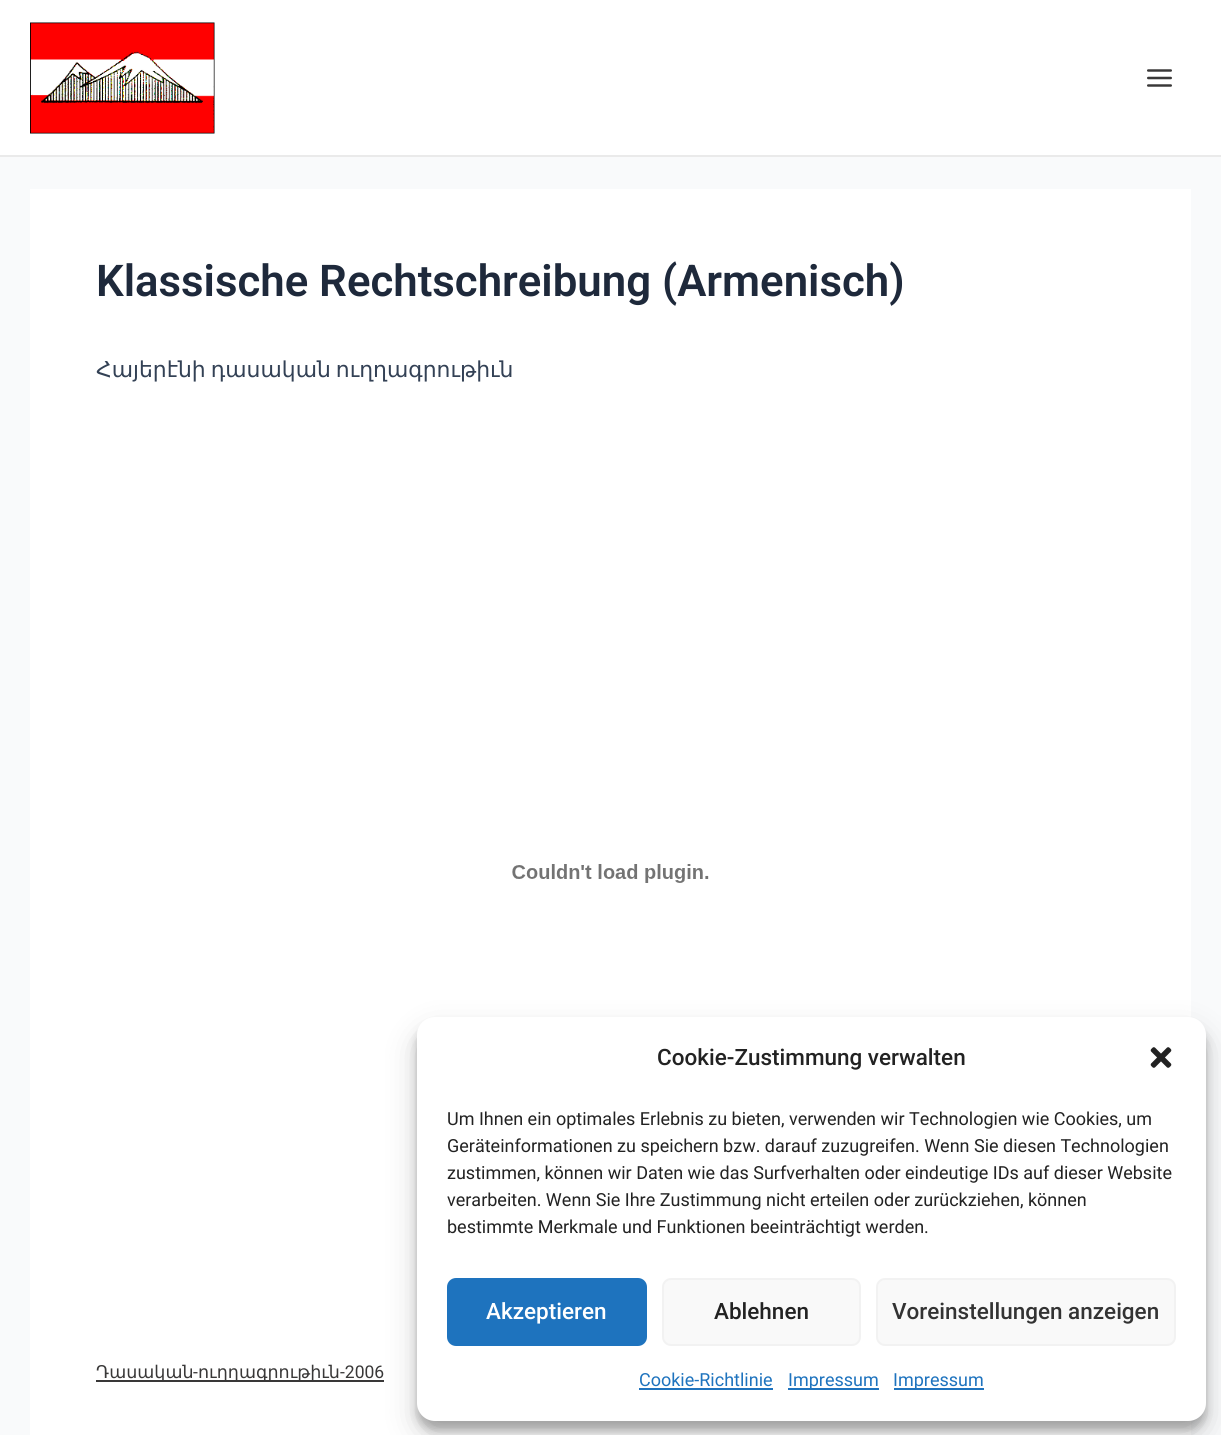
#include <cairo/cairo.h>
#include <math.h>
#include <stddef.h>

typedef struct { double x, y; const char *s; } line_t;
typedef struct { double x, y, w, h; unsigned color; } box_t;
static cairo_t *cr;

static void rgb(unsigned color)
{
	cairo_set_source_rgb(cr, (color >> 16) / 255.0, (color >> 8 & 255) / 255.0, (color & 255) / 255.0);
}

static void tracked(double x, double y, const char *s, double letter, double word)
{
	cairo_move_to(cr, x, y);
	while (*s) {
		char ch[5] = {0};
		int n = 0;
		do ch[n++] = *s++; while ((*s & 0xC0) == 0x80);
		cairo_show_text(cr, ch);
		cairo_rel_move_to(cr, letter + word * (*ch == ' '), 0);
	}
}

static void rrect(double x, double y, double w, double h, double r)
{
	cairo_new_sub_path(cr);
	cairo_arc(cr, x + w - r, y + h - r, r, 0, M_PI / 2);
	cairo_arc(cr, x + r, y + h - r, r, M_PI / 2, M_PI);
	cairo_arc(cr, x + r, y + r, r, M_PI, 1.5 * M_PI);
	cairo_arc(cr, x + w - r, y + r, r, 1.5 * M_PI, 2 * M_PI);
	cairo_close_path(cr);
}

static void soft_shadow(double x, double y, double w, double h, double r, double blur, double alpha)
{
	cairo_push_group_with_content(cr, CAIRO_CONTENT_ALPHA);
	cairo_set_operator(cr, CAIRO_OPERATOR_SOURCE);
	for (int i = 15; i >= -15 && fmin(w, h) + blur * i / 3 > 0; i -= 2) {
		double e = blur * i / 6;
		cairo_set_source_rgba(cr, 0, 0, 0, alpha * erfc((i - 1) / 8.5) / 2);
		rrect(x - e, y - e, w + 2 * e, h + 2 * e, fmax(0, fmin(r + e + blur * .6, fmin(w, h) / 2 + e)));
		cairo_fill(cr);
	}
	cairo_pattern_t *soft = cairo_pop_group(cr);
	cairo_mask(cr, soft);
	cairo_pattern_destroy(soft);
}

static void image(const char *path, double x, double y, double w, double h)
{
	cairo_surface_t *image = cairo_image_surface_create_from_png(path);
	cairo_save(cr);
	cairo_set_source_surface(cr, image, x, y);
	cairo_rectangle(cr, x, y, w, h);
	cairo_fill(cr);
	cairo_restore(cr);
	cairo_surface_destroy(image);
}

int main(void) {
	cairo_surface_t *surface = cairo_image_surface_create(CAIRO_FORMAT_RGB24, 1221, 1435);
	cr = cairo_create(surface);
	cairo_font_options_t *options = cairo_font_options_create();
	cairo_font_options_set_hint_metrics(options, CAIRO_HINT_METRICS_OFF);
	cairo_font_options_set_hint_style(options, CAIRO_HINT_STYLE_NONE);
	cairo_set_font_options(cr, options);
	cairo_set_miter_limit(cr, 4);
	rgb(0xf9fafb);
	cairo_paint(cr);
	rgb(0xffffff);
	cairo_rectangle(cr, 0, 0, 1221, 155);
	cairo_fill(cr);
	rgb(0xeaeaea);
	cairo_rectangle(cr, 0, 155, 1221, 2);
	cairo_fill(cr);
	image("img/1.png", 30, 22, 185, 112);
	image("img/2.png", 1147, 69, 25, 18);
	rgb(0xffffff);
	cairo_rectangle(cr, 30, 189, 1161, 1246);
	cairo_fill(cr);
	image("img/3.png", 512, 864, 197, 19);
	rgb(0x393838);
	cairo_rectangle(cr, 96, 1380, 288, 2);
	cairo_fill(cr);
	rgb(0x000000);
	soft_shadow(417, 1026, 789, 404, 18, 4.5, 0.23);
	soft_shadow(417, 1032, 789, 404, 18, 15, 0.19);
	rgb(0xffffff);
	rrect(417, 1017, 789, 404, 18);
	cairo_fill(cr);
	image("img/4.png", 1150, 1047, 22, 21);
	rgb(0x1e73be);
	rrect(448, 1279, 198, 66, 8);
	cairo_fill_preserve(cr);
	cairo_stroke(cr);
	rgb(0xf9f9f9);
	rrect(663, 1279, 197, 66, 8);
	cairo_fill_preserve(cr);
	rgb(0xf2f2f2);
	cairo_stroke(cr);
	rgb(0xf9f9f9);
	rrect(877, 1279, 298, 66, 8);
	cairo_fill_preserve(cr);
	rgb(0xf2f2f2);
	cairo_stroke(cr);
	{
		static const box_t items[] = {
			{639, 1388, 134, 2, 0x1e73be},
			{788, 1388, 91, 2, 0x1e73be},
			{894, 1388, 90, 2, 0x1e73be},
		};
		for (size_t i = 0; i < sizeof items / sizeof *items; i++) {
			rgb(items[i].color);
			cairo_rectangle(cr, items[i].x, items[i].y, items[i].w, items[i].h);
			cairo_fill(cr);
		}
	}
	cairo_select_font_face(cr, "Roboto SemiBold", CAIRO_FONT_SLANT_NORMAL, CAIRO_FONT_WEIGHT_NORMAL);
	cairo_set_font_size(cr, 43.75);
	rgb(0x1e293b);
	cairo_move_to(cr, 96, 296);
	cairo_show_text(cr, "Klassische Rechtschreibung (Armenisch)");
	cairo_select_font_face(cr, "DejaVu Sans", CAIRO_FONT_SLANT_NORMAL, CAIRO_FONT_WEIGHT_NORMAL);
	cairo_set_font_size(cr, 21.9);
	rgb(0x334155);
	tracked(96, 377, "Հայերէնի դասական ուղղագրութիւն", 0, -2);
	cairo_set_font_size(cr, 17.5);
	rgb(0x393838);
	cairo_move_to(cr, 96, 1378);
	cairo_show_text(cr, "Դասական");
	cairo_select_font_face(cr, "Roboto", CAIRO_FONT_SLANT_NORMAL, CAIRO_FONT_WEIGHT_NORMAL);
	cairo_move_to(cr, 193, 1378);
	cairo_show_text(cr, "-");
	cairo_select_font_face(cr, "DejaVu Sans", CAIRO_FONT_SLANT_NORMAL, CAIRO_FONT_WEIGHT_NORMAL);
	cairo_move_to(cr, 198, 1378);
	cairo_show_text(cr, "ուղղագրութիւն");
	cairo_select_font_face(cr, "Roboto", CAIRO_FONT_SLANT_NORMAL, CAIRO_FONT_WEIGHT_NORMAL);
	cairo_move_to(cr, 340, 1378);
	cairo_show_text(cr, "-2006");
	cairo_select_font_face(cr, "Roboto Medium", CAIRO_FONT_SLANT_NORMAL, CAIRO_FONT_WEIGHT_NORMAL);
	cairo_set_font_size(cr, 22.5);
	rgb(0x222222);
	cairo_move_to(cr, 657, 1065);
	cairo_show_text(cr, "Cookie-Zustimmung verwalten");
	cairo_select_font_face(cr, "Roboto", CAIRO_FONT_SLANT_NORMAL, CAIRO_FONT_WEIGHT_NORMAL);
	cairo_set_font_size(cr, 18);
	{
		static const line_t items[] = {
			{447, 1125, "Um Ihnen ein optimales Erlebnis zu bieten, verwenden wir Technologien wie Cookies, um"},
			{447, 1152, "Geräteinformationen zu speichern bzw. darauf zuzugreifen. Wenn Sie diesen Technologien"},
			{447, 1179, "zustimmen, können wir Daten wie das Surfverhalten oder eindeutige IDs auf dieser Website"},
			{447, 1206, "verarbeiten. Wenn Sie Ihre Zustimmung nicht erteilen oder zurückziehen, können"},
			{447, 1233, "bestimmte Merkmale und Funktionen beeinträchtigt werden."},
		};
		for (size_t i = 0; i < sizeof items / sizeof *items; i++) {
			cairo_move_to(cr, items[i].x, items[i].y);
			cairo_show_text(cr, items[i].s);
		}
	}
	cairo_select_font_face(cr, "Roboto Medium", CAIRO_FONT_SLANT_NORMAL, CAIRO_FONT_WEIGHT_NORMAL);
	cairo_set_font_size(cr, 22.5);
	rgb(0xffffff);
	cairo_move_to(cr, 486, 1319);
	cairo_show_text(cr, "Akzeptieren");
	rgb(0x222222);
	cairo_move_to(cr, 714, 1319);
	cairo_show_text(cr, "Ablehnen");
	rgb(0x333333);
	cairo_move_to(cr, 892, 1319);
	cairo_show_text(cr, "Voreinstellungen anzeigen");
	cairo_select_font_face(cr, "Roboto", CAIRO_FONT_SLANT_NORMAL, CAIRO_FONT_WEIGHT_NORMAL);
	cairo_set_font_size(cr, 18);
	rgb(0x1e73be);
	{
		static const line_t items[] = {
			{639, 1386, "Cookie-Richtlinie"},
			{788, 1386, "Impressum"},
			{893, 1386, "Impressum"},
		};
		for (size_t i = 0; i < sizeof items / sizeof *items; i++) {
			cairo_move_to(cr, items[i].x, items[i].y);
			cairo_show_text(cr, items[i].s);
		}
	}
	cairo_surface_write_to_png(surface, "page.png");
	cairo_font_options_destroy(options);
	cairo_destroy(cr);
	cairo_surface_destroy(surface);
	return 0;
}
